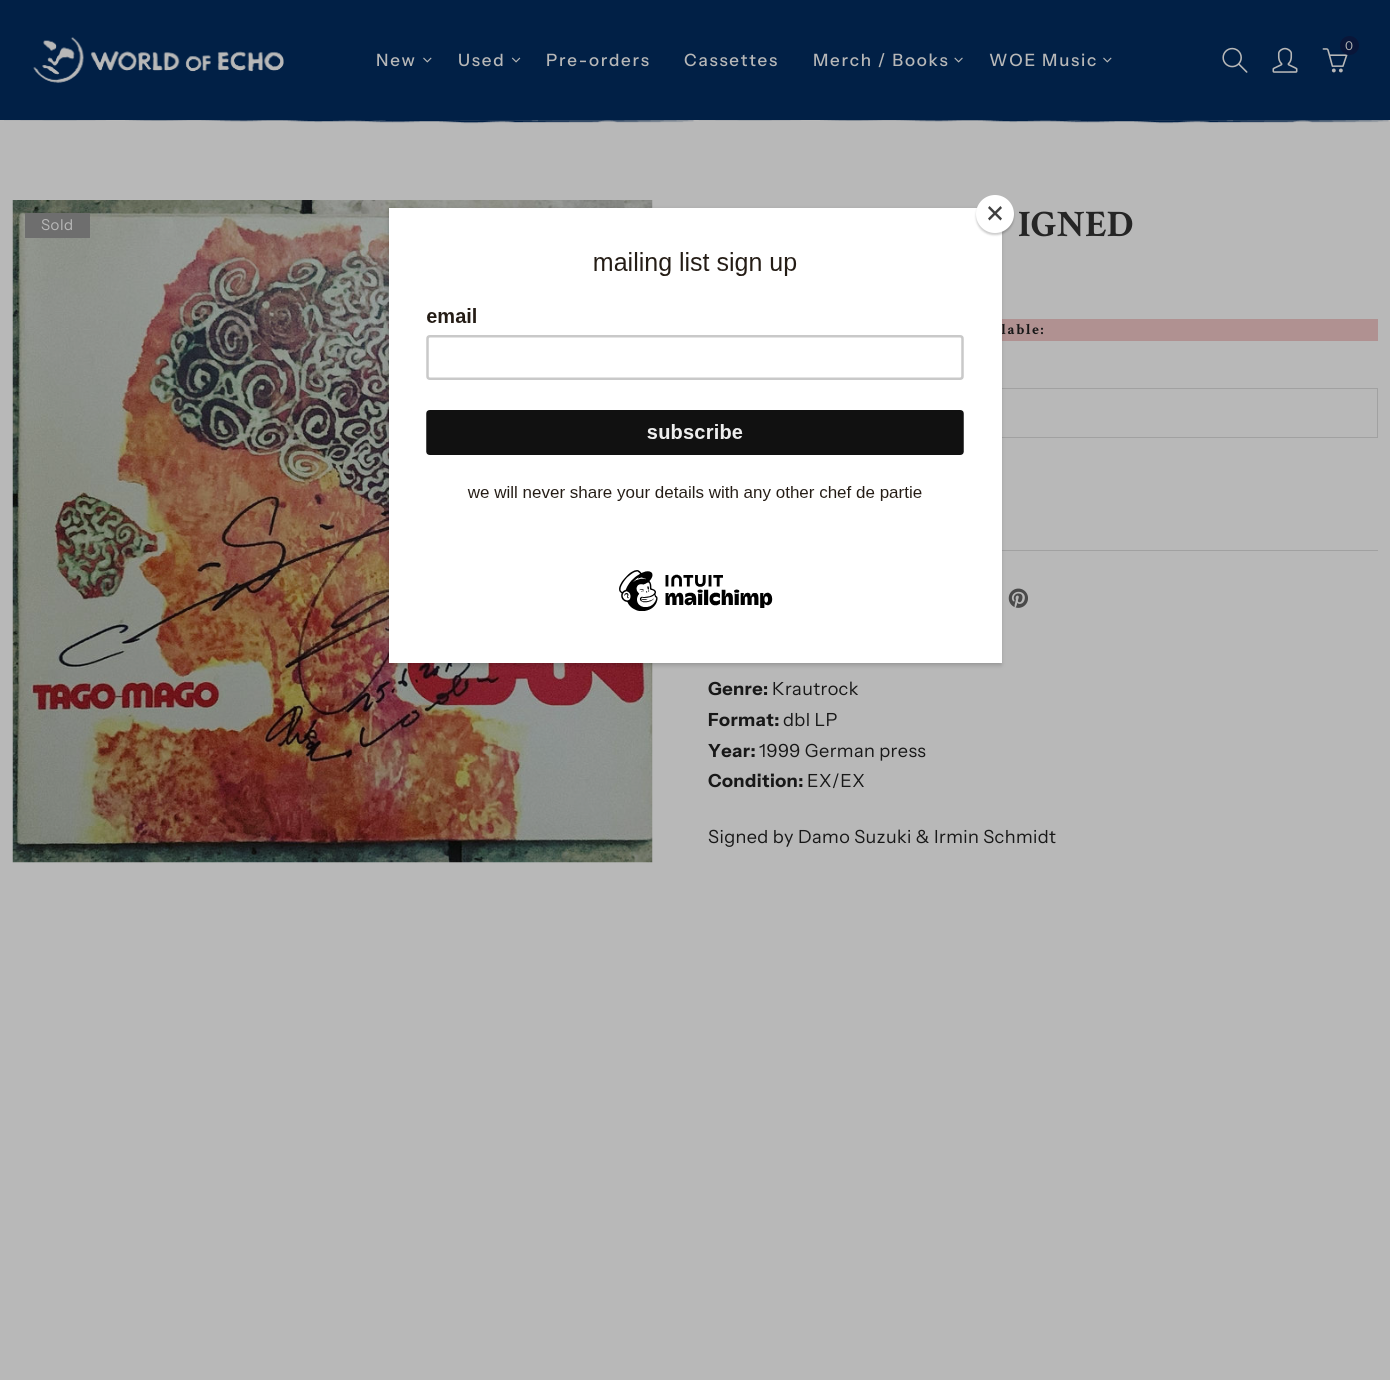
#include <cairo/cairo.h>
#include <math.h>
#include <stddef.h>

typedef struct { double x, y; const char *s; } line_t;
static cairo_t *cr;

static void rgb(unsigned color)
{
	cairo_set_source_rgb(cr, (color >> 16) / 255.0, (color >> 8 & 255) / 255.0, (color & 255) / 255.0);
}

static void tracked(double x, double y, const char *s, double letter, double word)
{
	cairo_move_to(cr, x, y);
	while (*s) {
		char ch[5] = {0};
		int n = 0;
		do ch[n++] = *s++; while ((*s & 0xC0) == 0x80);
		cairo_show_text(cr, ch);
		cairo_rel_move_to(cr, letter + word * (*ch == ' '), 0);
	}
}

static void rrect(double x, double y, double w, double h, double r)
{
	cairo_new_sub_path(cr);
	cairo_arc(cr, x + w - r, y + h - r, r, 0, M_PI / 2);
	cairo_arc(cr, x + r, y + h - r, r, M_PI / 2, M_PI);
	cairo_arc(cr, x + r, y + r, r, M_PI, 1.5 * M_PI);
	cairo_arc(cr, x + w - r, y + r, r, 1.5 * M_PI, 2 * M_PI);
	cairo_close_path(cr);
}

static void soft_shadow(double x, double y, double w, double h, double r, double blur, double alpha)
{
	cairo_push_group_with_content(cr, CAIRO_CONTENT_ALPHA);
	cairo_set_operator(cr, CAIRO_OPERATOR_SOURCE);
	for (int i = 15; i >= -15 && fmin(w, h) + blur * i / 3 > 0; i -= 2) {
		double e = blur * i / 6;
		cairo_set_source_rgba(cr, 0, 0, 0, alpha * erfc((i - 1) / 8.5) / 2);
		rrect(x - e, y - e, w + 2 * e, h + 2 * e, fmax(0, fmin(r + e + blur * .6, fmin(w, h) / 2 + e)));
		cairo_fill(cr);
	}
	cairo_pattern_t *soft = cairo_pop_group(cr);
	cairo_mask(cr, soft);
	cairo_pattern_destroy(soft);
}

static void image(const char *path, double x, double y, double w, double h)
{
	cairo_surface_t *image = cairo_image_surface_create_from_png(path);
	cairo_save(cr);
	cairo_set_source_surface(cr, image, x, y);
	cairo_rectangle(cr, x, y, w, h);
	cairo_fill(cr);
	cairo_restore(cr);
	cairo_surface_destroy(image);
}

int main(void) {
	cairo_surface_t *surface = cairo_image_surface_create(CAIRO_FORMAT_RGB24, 1390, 1380);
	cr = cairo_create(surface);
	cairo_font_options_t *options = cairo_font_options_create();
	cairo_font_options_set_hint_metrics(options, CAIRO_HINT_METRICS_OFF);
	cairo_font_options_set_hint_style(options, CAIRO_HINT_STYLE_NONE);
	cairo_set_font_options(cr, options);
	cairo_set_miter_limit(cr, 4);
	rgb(0xb8b8b8);
	cairo_paint(cr);
	rgb(0x012046);
	cairo_rectangle(cr, 0, 0, 1390, 120);
	cairo_fill(cr);
	image("img/1.png", 4, 120, 1385, 4);
	image("img/2.png", 33, 37, 251, 46);
	image("img/3.png", 1322, 48, 26, 25);
	rgb(0x091639);
	cairo_arc(cr, 1349.5, 45.5, 9.5, 0, 2 * M_PI);
	cairo_fill(cr);
	image("img/4.png", 1222, 47, 26, 26);
	image("img/5.png", 1272, 47, 26, 26);
	image("img/6.png", 423, 57, 9, 6);
	image("img/7.png", 511, 57, 10, 6);
	image("img/8.png", 954, 57, 9, 6);
	image("img/6.png", 1103, 57, 9, 6);
	image("img/9.png", 12, 200, 641, 663);
	rgb(0x6e6e6e);
	cairo_rectangle(cr, 25, 213, 65, 25);
	cairo_fill(cr);
	rgb(0xb09191);
	cairo_rectangle(cr, 1002, 319, 376, 22);
	cairo_fill(cr);
	cairo_rectangle(cr, 708.5, 388.5, 669, 49);
	rgb(0xa1a1a1);
	cairo_set_line_width(cr, 1);
	cairo_stroke(cr);
	cairo_rectangle(cr, 1002, 550, 376, 1);
	cairo_fill(cr);
	image("img/10.png", 1008, 588, 20, 20);
	rgb(0x000000);
	soft_shadow(389, 210, 612, 455, 0, 2.5, 0.2);
	cairo_select_font_face(cr, "Instrument Sans", CAIRO_FONT_SLANT_NORMAL, CAIRO_FONT_WEIGHT_NORMAL);
	cairo_set_font_size(cr, 12);
	rgb(0xb8b8b8);
	cairo_move_to(cr, 1345, 50);
	cairo_show_text(cr, "0");
	cairo_select_font_face(cr, "Instrument Sans Medium", CAIRO_FONT_SLANT_NORMAL, CAIRO_FONT_WEIGHT_NORMAL);
	cairo_set_font_size(cr, 17);
	{
		static const line_t items[] = {
			{376, 66, "New"},
			{458, 66, "Used"},
			{546, 66, "Pre-orders"},
			{684, 66, "Cassettes"},
			{813, 66, "Merch / Books"},
			{989, 66, "WOE Music"},
		};
		for (size_t i = 0; i < sizeof items / sizeof *items; i++) {
			tracked(items[i].x, items[i].y, items[i].s, 1.75, 0);
		}
	}
	cairo_select_font_face(cr, "Instrument Sans", CAIRO_FONT_SLANT_NORMAL, CAIRO_FONT_WEIGHT_NORMAL);
	cairo_set_font_size(cr, 15);
	tracked(41, 230, "Sold", 0.5, 0);
	cairo_select_font_face(cr, "Crimson Text", CAIRO_FONT_SLANT_NORMAL, CAIRO_FONT_WEIGHT_BOLD);
	cairo_set_font_size(cr, 37.5);
	rgb(0x252525);
	cairo_move_to(cr, 1018, 236);
	cairo_show_text(cr, "IGNED");
	cairo_set_font_size(cr, 15);
	rgb(0x181818);
	tracked(1001, 334, "lable:", 1.5, 0);
	cairo_select_font_face(cr, "Instrument Sans", CAIRO_FONT_SLANT_NORMAL, CAIRO_FONT_WEIGHT_BOLD);
	cairo_set_font_size(cr, 18.1);
	tracked(708, 695, "Genre:", 0.4, 0);
	cairo_select_font_face(cr, "Instrument Sans", CAIRO_FONT_SLANT_NORMAL, CAIRO_FONT_WEIGHT_NORMAL);
	tracked(772, 695, "Krautrock", 0.4, 0);
	cairo_select_font_face(cr, "Instrument Sans", CAIRO_FONT_SLANT_NORMAL, CAIRO_FONT_WEIGHT_BOLD);
	tracked(708, 726, "Format:", 0.4, 0);
	cairo_select_font_face(cr, "Instrument Sans", CAIRO_FONT_SLANT_NORMAL, CAIRO_FONT_WEIGHT_NORMAL);
	tracked(783, 726, "dbl LP", 0.4, 0);
	cairo_select_font_face(cr, "Instrument Sans", CAIRO_FONT_SLANT_NORMAL, CAIRO_FONT_WEIGHT_BOLD);
	tracked(708, 757, "Year:", 0.4, 0);
	cairo_select_font_face(cr, "Instrument Sans", CAIRO_FONT_SLANT_NORMAL, CAIRO_FONT_WEIGHT_NORMAL);
	tracked(759, 757, "1999 German press", 0.4, 0);
	cairo_select_font_face(cr, "Instrument Sans", CAIRO_FONT_SLANT_NORMAL, CAIRO_FONT_WEIGHT_BOLD);
	tracked(708, 787, "Condition:", 0.4, 0);
	cairo_select_font_face(cr, "Instrument Sans", CAIRO_FONT_SLANT_NORMAL, CAIRO_FONT_WEIGHT_NORMAL);
	tracked(807, 787, "EX/EX", 0.4, 0);
	tracked(708, 843, "Signed by Damo Suzuki & Irmin Schmidt", 0.4, 0);
	image("img/11.png", 389, 208, 613, 455);
	rgb(0x000000);
	soft_shadow(976, 198, 38, 37, 18.5, 1, 0.2);
	rgb(0xffffff);
	cairo_arc(cr, 995, 214, 19, 0, 2 * M_PI);
	cairo_fill(cr);
	rgb(0x414141);
	cairo_new_path(cr);
	cairo_move_to(cr, 1000.5, 206);
	cairo_line_to(cr, 1002, 208);
	cairo_line_to(cr, 989.5, 220.5);
	cairo_line_to(cr, 988, 218.5);
	cairo_close_path(cr);
	cairo_fill(cr);
	cairo_new_path(cr);
	cairo_move_to(cr, 988, 208);
	cairo_line_to(cr, 989.5, 206);
	cairo_line_to(cr, 1002, 218.5);
	cairo_line_to(cr, 1000.5, 220.5);
	cairo_close_path(cr);
	cairo_fill(cr);
	cairo_surface_write_to_png(surface, "page.png");
	cairo_font_options_destroy(options);
	cairo_destroy(cr);
	cairo_surface_destroy(surface);
	return 0;
}
